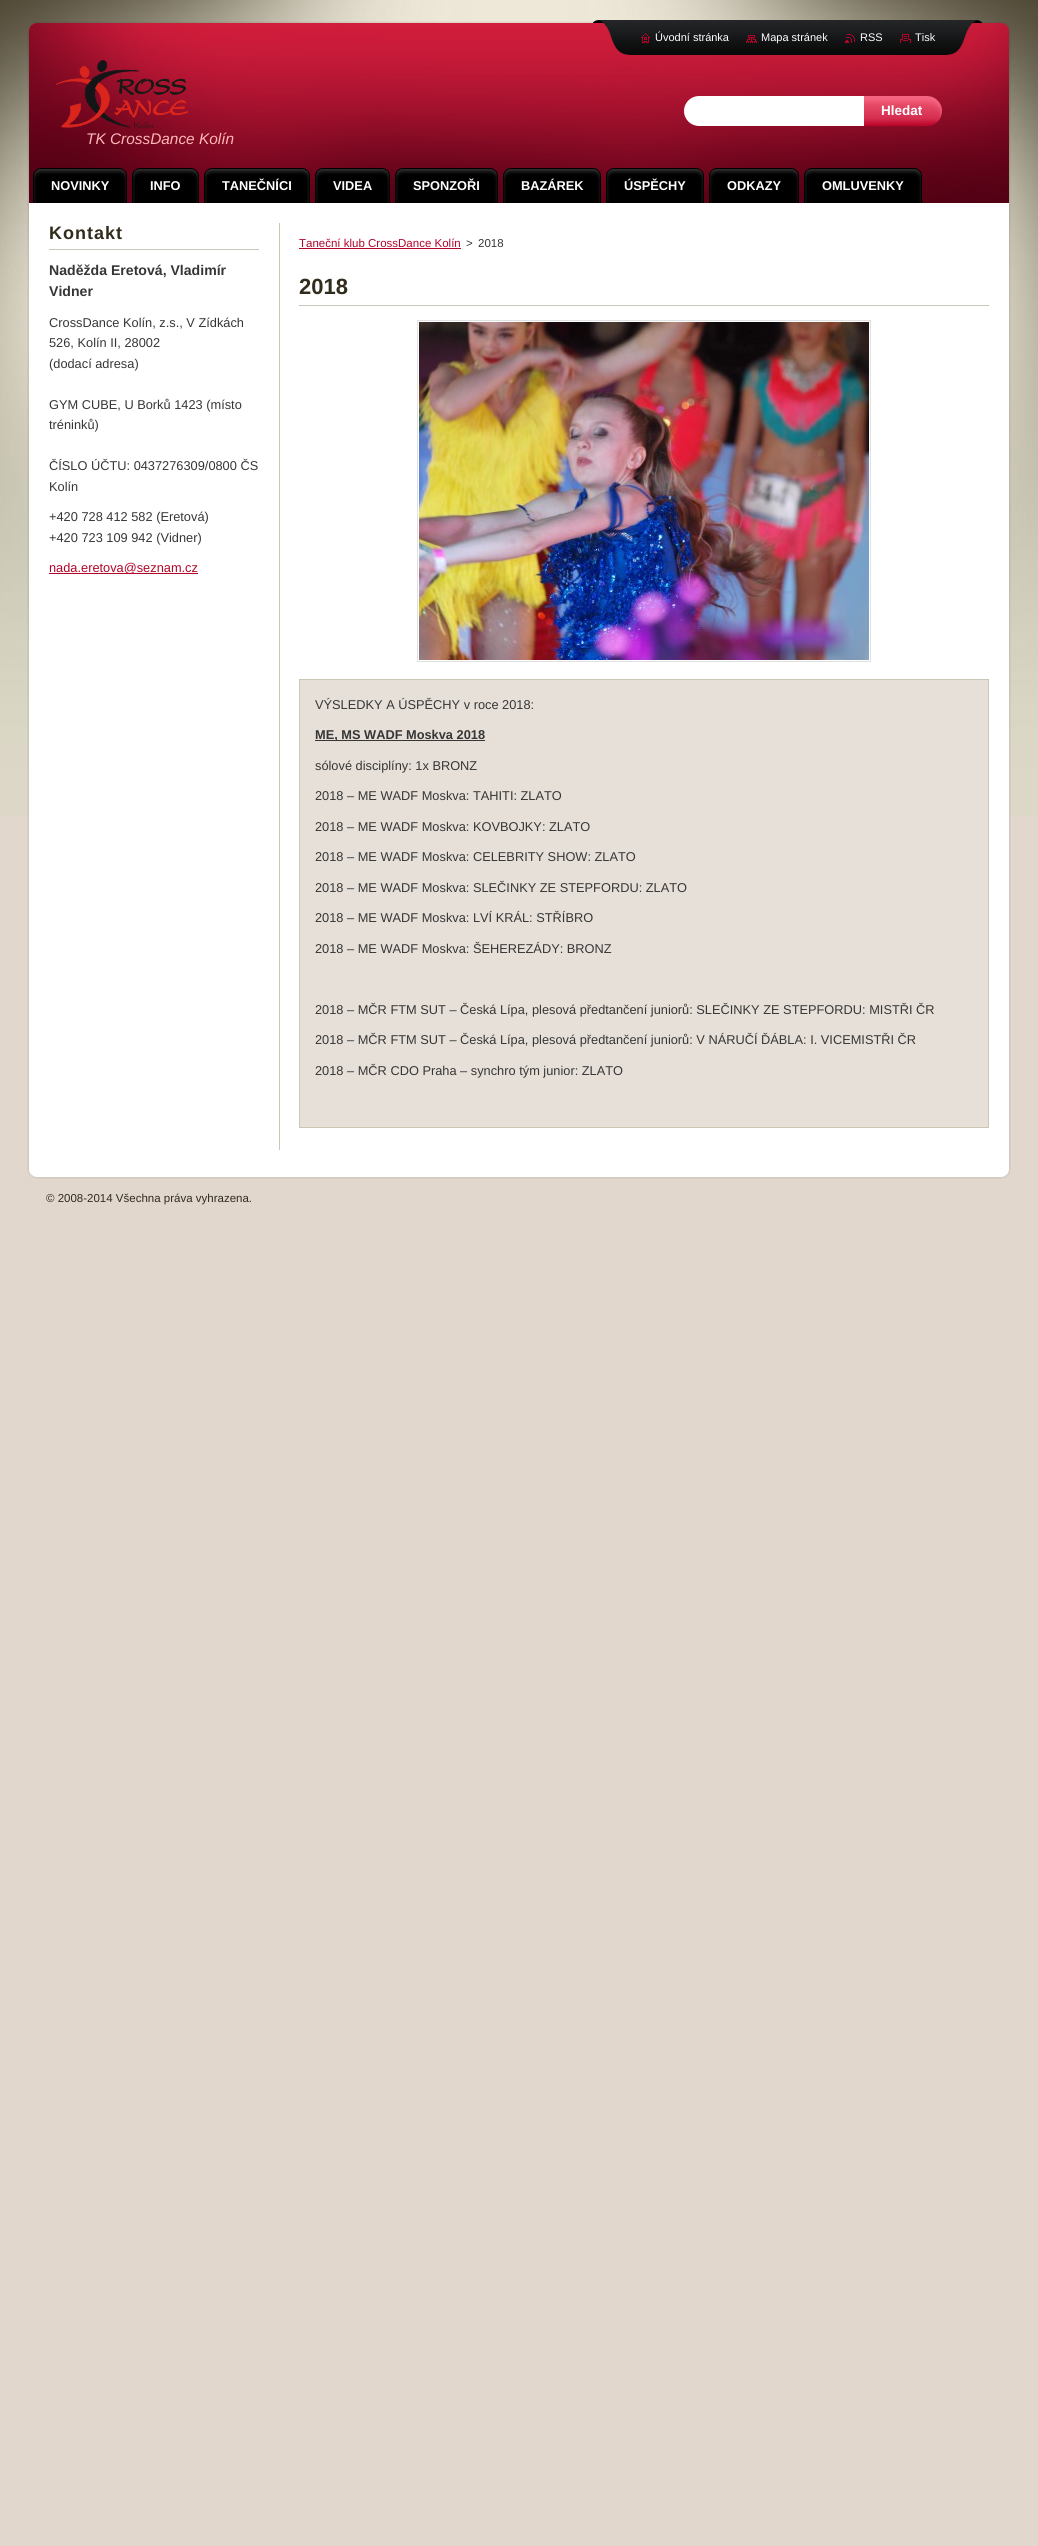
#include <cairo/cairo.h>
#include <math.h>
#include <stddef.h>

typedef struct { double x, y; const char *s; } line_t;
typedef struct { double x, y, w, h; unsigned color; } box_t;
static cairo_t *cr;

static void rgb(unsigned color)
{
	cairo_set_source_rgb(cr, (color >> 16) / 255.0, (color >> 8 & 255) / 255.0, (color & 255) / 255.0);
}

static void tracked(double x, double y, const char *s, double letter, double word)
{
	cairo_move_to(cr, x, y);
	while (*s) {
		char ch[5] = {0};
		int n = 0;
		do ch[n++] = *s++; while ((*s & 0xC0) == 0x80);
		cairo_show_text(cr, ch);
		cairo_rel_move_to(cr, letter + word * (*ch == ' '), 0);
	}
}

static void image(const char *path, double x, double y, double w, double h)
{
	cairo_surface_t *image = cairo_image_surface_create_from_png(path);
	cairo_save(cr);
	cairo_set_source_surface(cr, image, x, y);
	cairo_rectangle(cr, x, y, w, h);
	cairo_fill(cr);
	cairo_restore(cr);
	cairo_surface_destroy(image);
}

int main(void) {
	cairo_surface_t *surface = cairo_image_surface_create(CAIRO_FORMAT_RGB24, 1038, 2546);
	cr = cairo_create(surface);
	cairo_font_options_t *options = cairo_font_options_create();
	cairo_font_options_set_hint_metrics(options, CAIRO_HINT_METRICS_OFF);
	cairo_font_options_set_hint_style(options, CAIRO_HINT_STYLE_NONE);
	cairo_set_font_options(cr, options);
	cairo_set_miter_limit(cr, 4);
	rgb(0xe1d7cd);
	cairo_paint(cr);
	image("img/1.png", 0, 667, 1038, 149);
	image("img/2.png", 0, 0, 1038, 667);
	image("img/11.png", 27, 21, 984, 182);
	image("img/3.png", 593, 20, 37, 35);
	image("img/4.png", 630, 20, 352, 35);
	image("img/5.png", 641, 33, 9, 10);
	image("img/6.png", 746, 35, 11, 8);
	image("img/7.png", 845, 34, 10, 9);
	image("img/8.png", 900, 34, 11, 9);
	image("img/9.png", 684, 96, 180, 30);
	image("img/10.png", 864, 96, 78, 30);
	image("img/12.png", 56, 60, 132, 69);
	image("img/13.png", 33, 168, 8, 35);
	image("img/14.png", 41, 168, 86, 35);
	image("img/15.png", 132, 168, 8, 35);
	image("img/16.png", 140, 168, 59, 35);
	image("img/17.png", 204, 168, 8, 35);
	image("img/18.png", 212, 168, 98, 35);
	image("img/19.png", 315, 168, 8, 35);
	image("img/20.png", 323, 168, 67, 35);
	image("img/21.png", 395, 168, 8, 35);
	image("img/22.png", 403, 168, 95, 35);
	image("img/23.png", 503, 168, 8, 35);
	image("img/24.png", 511, 168, 90, 35);
	image("img/25.png", 606, 168, 8, 35);
	image("img/26.png", 614, 168, 90, 35);
	image("img/27.png", 709, 168, 8, 35);
	image("img/28.png", 717, 168, 82, 35);
	image("img/29.png", 804, 168, 8, 35);
	image("img/30.png", 812, 168, 110, 35);
	image("img/31.png", 27, 1170, 984, 9);
	image("img/32.png", 27, 203, 984, 967);
	{
		static const box_t items[] = {
			{279, 223, 1, 927, 0xc9c7b3},
			{49, 249, 210, 1, 0xc9c7b3},
			{49, 573, 149, 1, 0xb10428},
			{299, 248, 162, 1, 0xb10428},
			{299, 305, 690, 1, 0xc9c7b3},
		};
		for (size_t i = 0; i < sizeof items / sizeof *items; i++) {
			rgb(items[i].color);
			cairo_rectangle(cr, items[i].x, items[i].y, items[i].w, items[i].h);
			cairo_fill(cr);
		}
	}
	cairo_rectangle(cr, 417.5, 320.5, 453, 341);
	rgb(0xe1e1e1);
	cairo_set_line_width(cr, 1);
	cairo_stroke(cr);
	image("img/33.png", 419, 322, 450, 338);
	rgb(0xe6e0d8);
	cairo_rectangle(cr, 299.5, 679.5, 689, 448);
	cairo_fill_preserve(cr);
	rgb(0xc9c7b3);
	cairo_stroke(cr);
	rgb(0x363636);
	cairo_rectangle(cr, 315, 740, 170, 1);
	cairo_fill(cr);
	cairo_select_font_face(cr, "Liberation Sans", CAIRO_FONT_SLANT_NORMAL, CAIRO_FONT_WEIGHT_NORMAL);
	cairo_set_font_size(cr, 11);
	rgb(0xffffff);
	{
		static const line_t items[] = {
			{655, 41, "Úvodní stránka"},
			{761, 41, "Mapa stránek"},
			{860, 41, "RSS"},
			{915, 41, "Tisk"},
		};
		for (size_t i = 0; i < sizeof items / sizeof *items; i++) {
			cairo_move_to(cr, items[i].x, items[i].y);
			cairo_show_text(cr, items[i].s);
		}
	}
	cairo_select_font_face(cr, "Liberation Sans", CAIRO_FONT_SLANT_NORMAL, CAIRO_FONT_WEIGHT_BOLD);
	cairo_set_font_size(cr, 13.5);
	cairo_move_to(cr, 881, 115);
	cairo_show_text(cr, "Hledat");
	cairo_select_font_face(cr, "Liberation Sans", CAIRO_FONT_SLANT_ITALIC, CAIRO_FONT_WEIGHT_NORMAL);
	cairo_set_font_size(cr, 15.4);
	rgb(0xffb7b7);
	cairo_move_to(cr, 86, 144);
	cairo_show_text(cr, "TK CrossDance Kolín");
	cairo_select_font_face(cr, "Liberation Sans", CAIRO_FONT_SLANT_NORMAL, CAIRO_FONT_WEIGHT_BOLD);
	cairo_set_font_size(cr, 12.8);
	rgb(0xffffff);
	{
		static const line_t items[] = {
			{51, 190, "NOVINKY"},
			{150, 190, "INFO"},
			{222, 190, "TANEČNÍCI"},
			{333, 190, "VIDEA"},
			{413, 190, "SPONZOŘI"},
			{521, 190, "BAZÁREK"},
			{624, 190, "ÚSPĚCHY"},
			{727, 190, "ODKAZY"},
			{822, 190, "OMLUVENKY"},
		};
		for (size_t i = 0; i < sizeof items / sizeof *items; i++) {
			cairo_move_to(cr, items[i].x, items[i].y);
			cairo_show_text(cr, items[i].s);
		}
	}
	cairo_set_font_size(cr, 18);
	rgb(0x312c1d);
	tracked(49, 239, "Kontakt", 1, 0);
	cairo_set_font_size(cr, 14.1);
	rgb(0x363636);
	cairo_move_to(cr, 49, 275);
	cairo_show_text(cr, "Naděžda Eretová, Vladimír");
	cairo_move_to(cr, 49, 296);
	cairo_show_text(cr, "Vidner");
	cairo_select_font_face(cr, "Liberation Sans", CAIRO_FONT_SLANT_NORMAL, CAIRO_FONT_WEIGHT_NORMAL);
	cairo_set_font_size(cr, 12.8);
	{
		static const line_t items[] = {
			{49, 327, "CrossDance Kolín, z.s., V Zídkách"},
			{49, 347, "526, Kolín II, 28002"},
			{49, 368, "(dodací adresa)"},
			{49, 409, "GYM CUBE, U Borků 1423 (místo"},
			{49, 429, "tréninků)"},
			{49, 470, "ČÍSLO ÚČTU: 0437276309/0800 ČS"},
			{49, 491, "Kolín"},
			{49, 521, "+420 728 412 582 (Eretová)"},
			{49, 542, "+420 723 109 942 (Vidner)"},
		};
		for (size_t i = 0; i < sizeof items / sizeof *items; i++) {
			cairo_move_to(cr, items[i].x, items[i].y);
			cairo_show_text(cr, items[i].s);
		}
	}
	rgb(0xb10428);
	cairo_move_to(cr, 49, 572);
	cairo_show_text(cr, "nada.eretova@seznam.cz");
	cairo_set_font_size(cr, 11.5);
	cairo_move_to(cr, 299, 247);
	cairo_show_text(cr, "Taneční klub CrossDance Kolín");
	rgb(0x363636);
	cairo_move_to(cr, 466, 247);
	cairo_show_text(cr, ">");
	cairo_move_to(cr, 478, 247);
	cairo_show_text(cr, "2018");
	cairo_select_font_face(cr, "Liberation Sans", CAIRO_FONT_SLANT_NORMAL, CAIRO_FONT_WEIGHT_BOLD);
	cairo_set_font_size(cr, 22);
	rgb(0x312c1d);
	cairo_move_to(cr, 299, 294);
	cairo_show_text(cr, "2018");
	cairo_select_font_face(cr, "Liberation Sans", CAIRO_FONT_SLANT_NORMAL, CAIRO_FONT_WEIGHT_NORMAL);
	cairo_set_font_size(cr, 12.8);
	rgb(0x363636);
	cairo_move_to(cr, 315, 709);
	cairo_show_text(cr, "VÝSLEDKY A ÚSPĚCHY v roce 2018:");
	cairo_select_font_face(cr, "Liberation Sans", CAIRO_FONT_SLANT_NORMAL, CAIRO_FONT_WEIGHT_BOLD);
	cairo_move_to(cr, 315, 739);
	cairo_show_text(cr, "ME, MS WADF Moskva 2018");
	cairo_select_font_face(cr, "Liberation Sans", CAIRO_FONT_SLANT_NORMAL, CAIRO_FONT_WEIGHT_NORMAL);
	{
		static const line_t items[] = {
			{315, 770, "sólové disciplíny: 1x BRONZ"},
			{315, 800, "2018 – ME WADF Moskva: TAHITI: ZLATO"},
			{315, 831, "2018 – ME WADF Moskva: KOVBOJKY: ZLATO"},
			{315, 861, "2018 – ME WADF Moskva: CELEBRITY SHOW: ZLATO"},
			{315, 892, "2018 – ME WADF Moskva: SLEČINKY ZE STEPFORDU: ZLATO"},
			{315, 922, "2018 – ME WADF Moskva: LVÍ KRÁL: STŘÍBRO"},
			{315, 953, "2018 – ME WADF Moskva: ŠEHEREZÁDY: BRONZ"},
			{315, 1014, "2018 – MČR FTM SUT – Česká Lípa, plesová předtančení juniorů: SLEČINKY ZE STEPFORDU: MISTŘI ČR"},
			{315, 1044, "2018 – MČR FTM SUT – Česká Lípa, plesová předtančení juniorů: V NÁRUČÍ ĎÁBLA: I. VICEMISTŘI ČR"},
			{315, 1075, "2018 – MČR CDO Praha – synchro tým junior: ZLATO"},
		};
		for (size_t i = 0; i < sizeof items / sizeof *items; i++) {
			cairo_move_to(cr, items[i].x, items[i].y);
			cairo_show_text(cr, items[i].s);
		}
	}
	cairo_set_font_size(cr, 11.5);
	rgb(0x312c1d);
	cairo_move_to(cr, 46, 1202);
	cairo_show_text(cr, "© 2008-2014 Všechna práva vyhrazena.");
	cairo_surface_write_to_png(surface, "page.png");
	cairo_font_options_destroy(options);
	cairo_destroy(cr);
	cairo_surface_destroy(surface);
	return 0;
}
